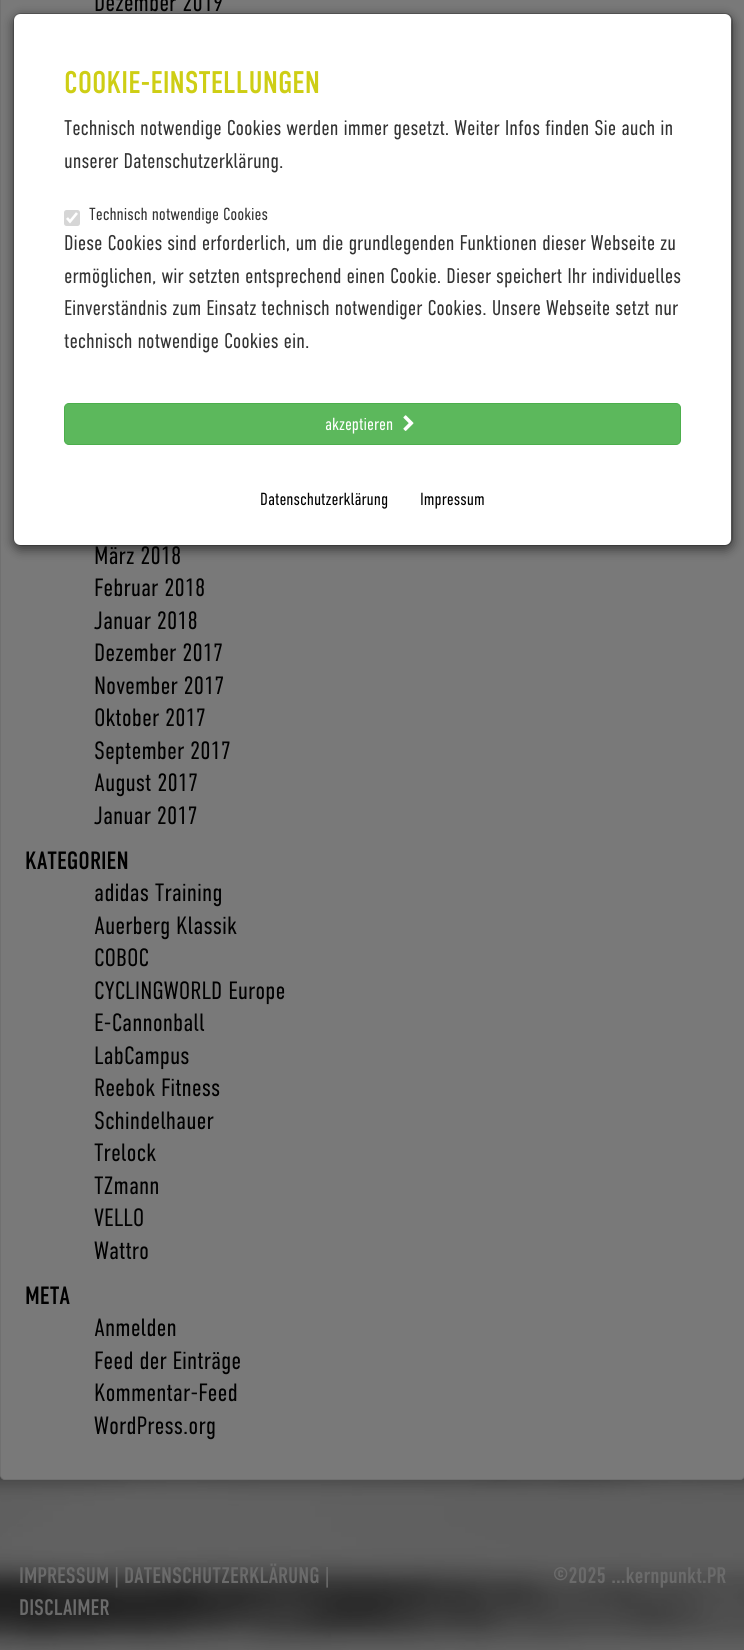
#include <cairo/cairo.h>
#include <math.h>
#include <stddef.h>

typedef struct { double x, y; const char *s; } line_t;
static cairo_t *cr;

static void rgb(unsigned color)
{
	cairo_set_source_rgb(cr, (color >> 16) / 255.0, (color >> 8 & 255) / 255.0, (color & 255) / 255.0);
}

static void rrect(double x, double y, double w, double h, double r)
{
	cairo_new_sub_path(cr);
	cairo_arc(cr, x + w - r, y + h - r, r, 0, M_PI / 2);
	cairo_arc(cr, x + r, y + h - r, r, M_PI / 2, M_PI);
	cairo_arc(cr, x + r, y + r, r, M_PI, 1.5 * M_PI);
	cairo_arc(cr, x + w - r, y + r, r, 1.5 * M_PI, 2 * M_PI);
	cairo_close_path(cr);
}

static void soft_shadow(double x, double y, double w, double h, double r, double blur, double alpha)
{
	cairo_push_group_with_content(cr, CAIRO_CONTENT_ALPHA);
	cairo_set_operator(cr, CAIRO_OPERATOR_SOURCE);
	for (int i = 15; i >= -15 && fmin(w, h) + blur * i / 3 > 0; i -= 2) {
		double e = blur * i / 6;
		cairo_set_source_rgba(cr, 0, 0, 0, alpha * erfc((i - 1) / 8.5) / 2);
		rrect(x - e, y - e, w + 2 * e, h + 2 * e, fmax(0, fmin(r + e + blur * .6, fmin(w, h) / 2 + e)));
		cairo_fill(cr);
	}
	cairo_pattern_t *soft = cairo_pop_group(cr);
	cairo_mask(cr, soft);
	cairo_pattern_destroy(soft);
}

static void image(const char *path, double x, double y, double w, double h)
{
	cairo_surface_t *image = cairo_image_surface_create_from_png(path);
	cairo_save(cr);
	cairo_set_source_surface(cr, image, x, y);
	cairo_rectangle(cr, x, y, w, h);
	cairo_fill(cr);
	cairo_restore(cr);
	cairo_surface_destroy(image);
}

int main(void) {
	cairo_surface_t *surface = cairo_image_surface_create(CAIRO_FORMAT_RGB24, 744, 1650);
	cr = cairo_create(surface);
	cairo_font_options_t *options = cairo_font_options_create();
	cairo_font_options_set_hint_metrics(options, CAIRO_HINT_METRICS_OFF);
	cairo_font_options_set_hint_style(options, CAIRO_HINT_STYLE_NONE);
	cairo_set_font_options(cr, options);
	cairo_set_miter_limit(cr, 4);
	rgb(0xffffff);
	cairo_paint(cr);
	image("img/1.png", 0, 1475, 744, 175);
	rgb(0x797979);
	rrect(0.5, -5.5, 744, 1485, 4.5);
	cairo_fill_preserve(cr);
	rgb(0x707070);
	cairo_set_line_width(cr, 1);
	cairo_stroke(cr);
	rgb(0x000000);
	soft_shadow(13, 16, 720, 534, 8, 5.5, 0.5);
	rgb(0xffffff);
	rrect(14, 14, 717, 531, 6);
	cairo_fill(cr);
	rrect(13.5, 13.5, 719, 532, 7.5);
	cairo_set_source_rgba(cr, 0, 0, 0, 0.2);
	cairo_stroke(cr);
	rgb(0xd6d6d6);
	rrect(64, 210, 16, 16, 2.5);
	cairo_fill(cr);
	cairo_new_path(cr);
	cairo_move_to(cr, 67, 218);
	cairo_line_to(cr, 70, 221.5);
	cairo_line_to(cr, 77, 213);
	rgb(0xffffff);
	cairo_set_line_width(cr, 2.6);
	cairo_stroke(cr);
	rgb(0x5cb85c);
	rrect(64.5, 403.5, 616, 41, 4.5);
	cairo_fill_preserve(cr);
	rgb(0x4cae4c);
	cairo_set_line_width(cr, 1);
	cairo_stroke(cr);
	image("img/2.png", 403, 415, 11, 16);
	cairo_select_font_face(cr, "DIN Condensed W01 Light", CAIRO_FONT_SLANT_NORMAL, CAIRO_FONT_WEIGHT_NORMAL);
	cairo_set_font_size(cr, 25);
	rgb(0x000000);
	{
		static const line_t items[] = {
			{94, 11, "Dezember 2019"},
			{94, 564, "März 2018"},
			{94, 596, "Februar 2018"},
			{94, 629, "Januar 2018"},
			{94, 661, "Dezember 2017"},
			{94, 694, "November 2017"},
			{94, 726, "Oktober 2017"},
			{94, 759, "September 2017"},
			{94, 791, "August 2017"},
			{94, 824, "Januar 2017"},
		};
		for (size_t i = 0; i < sizeof items / sizeof *items; i++) {
			cairo_move_to(cr, items[i].x, items[i].y);
			cairo_show_text(cr, items[i].s);
		}
	}
	cairo_select_font_face(cr, "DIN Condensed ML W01", CAIRO_FONT_SLANT_NORMAL, CAIRO_FONT_WEIGHT_NORMAL);
	cairo_move_to(cr, 25, 869);
	cairo_show_text(cr, "KATEGORIEN");
	cairo_select_font_face(cr, "DIN Condensed W01 Light", CAIRO_FONT_SLANT_NORMAL, CAIRO_FONT_WEIGHT_NORMAL);
	{
		static const line_t items[] = {
			{94, 901, "adidas Training"},
			{94, 934, "Auerberg Klassik"},
			{94, 966, "COBOC"},
			{94, 999, "CYCLINGWORLD Europe"},
			{94, 1031, "E-Cannonball"},
			{94, 1064, "LabCampus"},
			{94, 1096, "Reebok Fitness"},
			{94, 1129, "Schindelhauer"},
			{94, 1161, "Trelock"},
			{94, 1194, "TZmann"},
			{94, 1226, "VELLO"},
			{94, 1259, "Wattro"},
		};
		for (size_t i = 0; i < sizeof items / sizeof *items; i++) {
			cairo_move_to(cr, items[i].x, items[i].y);
			cairo_show_text(cr, items[i].s);
		}
	}
	cairo_select_font_face(cr, "DIN Condensed ML W01", CAIRO_FONT_SLANT_NORMAL, CAIRO_FONT_WEIGHT_NORMAL);
	cairo_move_to(cr, 25, 1304);
	cairo_show_text(cr, "META");
	cairo_select_font_face(cr, "DIN Condensed W01 Light", CAIRO_FONT_SLANT_NORMAL, CAIRO_FONT_WEIGHT_NORMAL);
	{
		static const line_t items[] = {
			{94, 1336, "Anmelden"},
			{94, 1369, "Feed der Einträge"},
			{94, 1401, "Kommentar-Feed"},
			{94, 1434, "WordPress.org"},
		};
		for (size_t i = 0; i < sizeof items / sizeof *items; i++) {
			cairo_move_to(cr, items[i].x, items[i].y);
			cairo_show_text(cr, items[i].s);
		}
	}
	cairo_select_font_face(cr, "DIN Condensed ML W01", CAIRO_FONT_SLANT_NORMAL, CAIRO_FONT_WEIGHT_NORMAL);
	cairo_set_font_size(cr, 22.5);
	rgb(0x6b6b6b);
	{
		static const line_t items[] = {
			{19, 1583, "IMPRESSUM | DATENSCHUTZERKLÄRUNG |"},
			{19, 1615, "DISCLAIMER"},
			{553, 1583, "©2025 ...kernpunkt.PR"},
		};
		for (size_t i = 0; i < sizeof items / sizeof *items; i++) {
			cairo_move_to(cr, items[i].x, items[i].y);
			cairo_show_text(cr, items[i].s);
		}
	}
	cairo_set_font_size(cr, 31.25);
	rgb(0xcece15);
	cairo_move_to(cr, 64, 93);
	cairo_show_text(cr, "COOKIE-EINSTELLUNGEN");
	cairo_select_font_face(cr, "DIN Condensed W01 Light", CAIRO_FONT_SLANT_NORMAL, CAIRO_FONT_WEIGHT_NORMAL);
	cairo_set_font_size(cr, 21.25);
	rgb(0x333333);
	cairo_move_to(cr, 64, 135);
	cairo_show_text(cr, "Technisch notwendige Cookies werden immer gesetzt. Weiter Infos finden Sie auch in");
	cairo_move_to(cr, 64, 168);
	cairo_show_text(cr, "unserer Datenschutzerklärung.");
	cairo_set_font_size(cr, 17.5);
	cairo_move_to(cr, 89, 220);
	cairo_show_text(cr, "Technisch notwendige Cookies");
	cairo_set_font_size(cr, 21.25);
	{
		static const line_t items[] = {
			{64, 250, "Diese Cookies sind erforderlich, um die grundlegenden Funktionen dieser Webseite zu"},
			{64, 283, "ermöglichen, wir setzten entsprechend einen Cookie. Dieser speichert Ihr individuelles"},
			{64, 315, "Einverständnis zum Einsatz technisch notwendiger Cookies. Unsere Webseite setzt nur"},
			{64, 348, "technisch notwendige Cookies ein."},
		};
		for (size_t i = 0; i < sizeof items / sizeof *items; i++) {
			cairo_move_to(cr, items[i].x, items[i].y);
			cairo_show_text(cr, items[i].s);
		}
	}
	cairo_set_font_size(cr, 17.5);
	rgb(0xffffff);
	cairo_move_to(cr, 325, 430);
	cairo_show_text(cr, "akzeptieren");
	rgb(0x000000);
	cairo_move_to(cr, 260, 505);
	cairo_show_text(cr, "Datenschutzerklärung");
	cairo_move_to(cr, 420, 505);
	cairo_show_text(cr, "Impressum");
	cairo_surface_write_to_png(surface, "page.png");
	cairo_font_options_destroy(options);
	cairo_destroy(cr);
	cairo_surface_destroy(surface);
	return 0;
}
